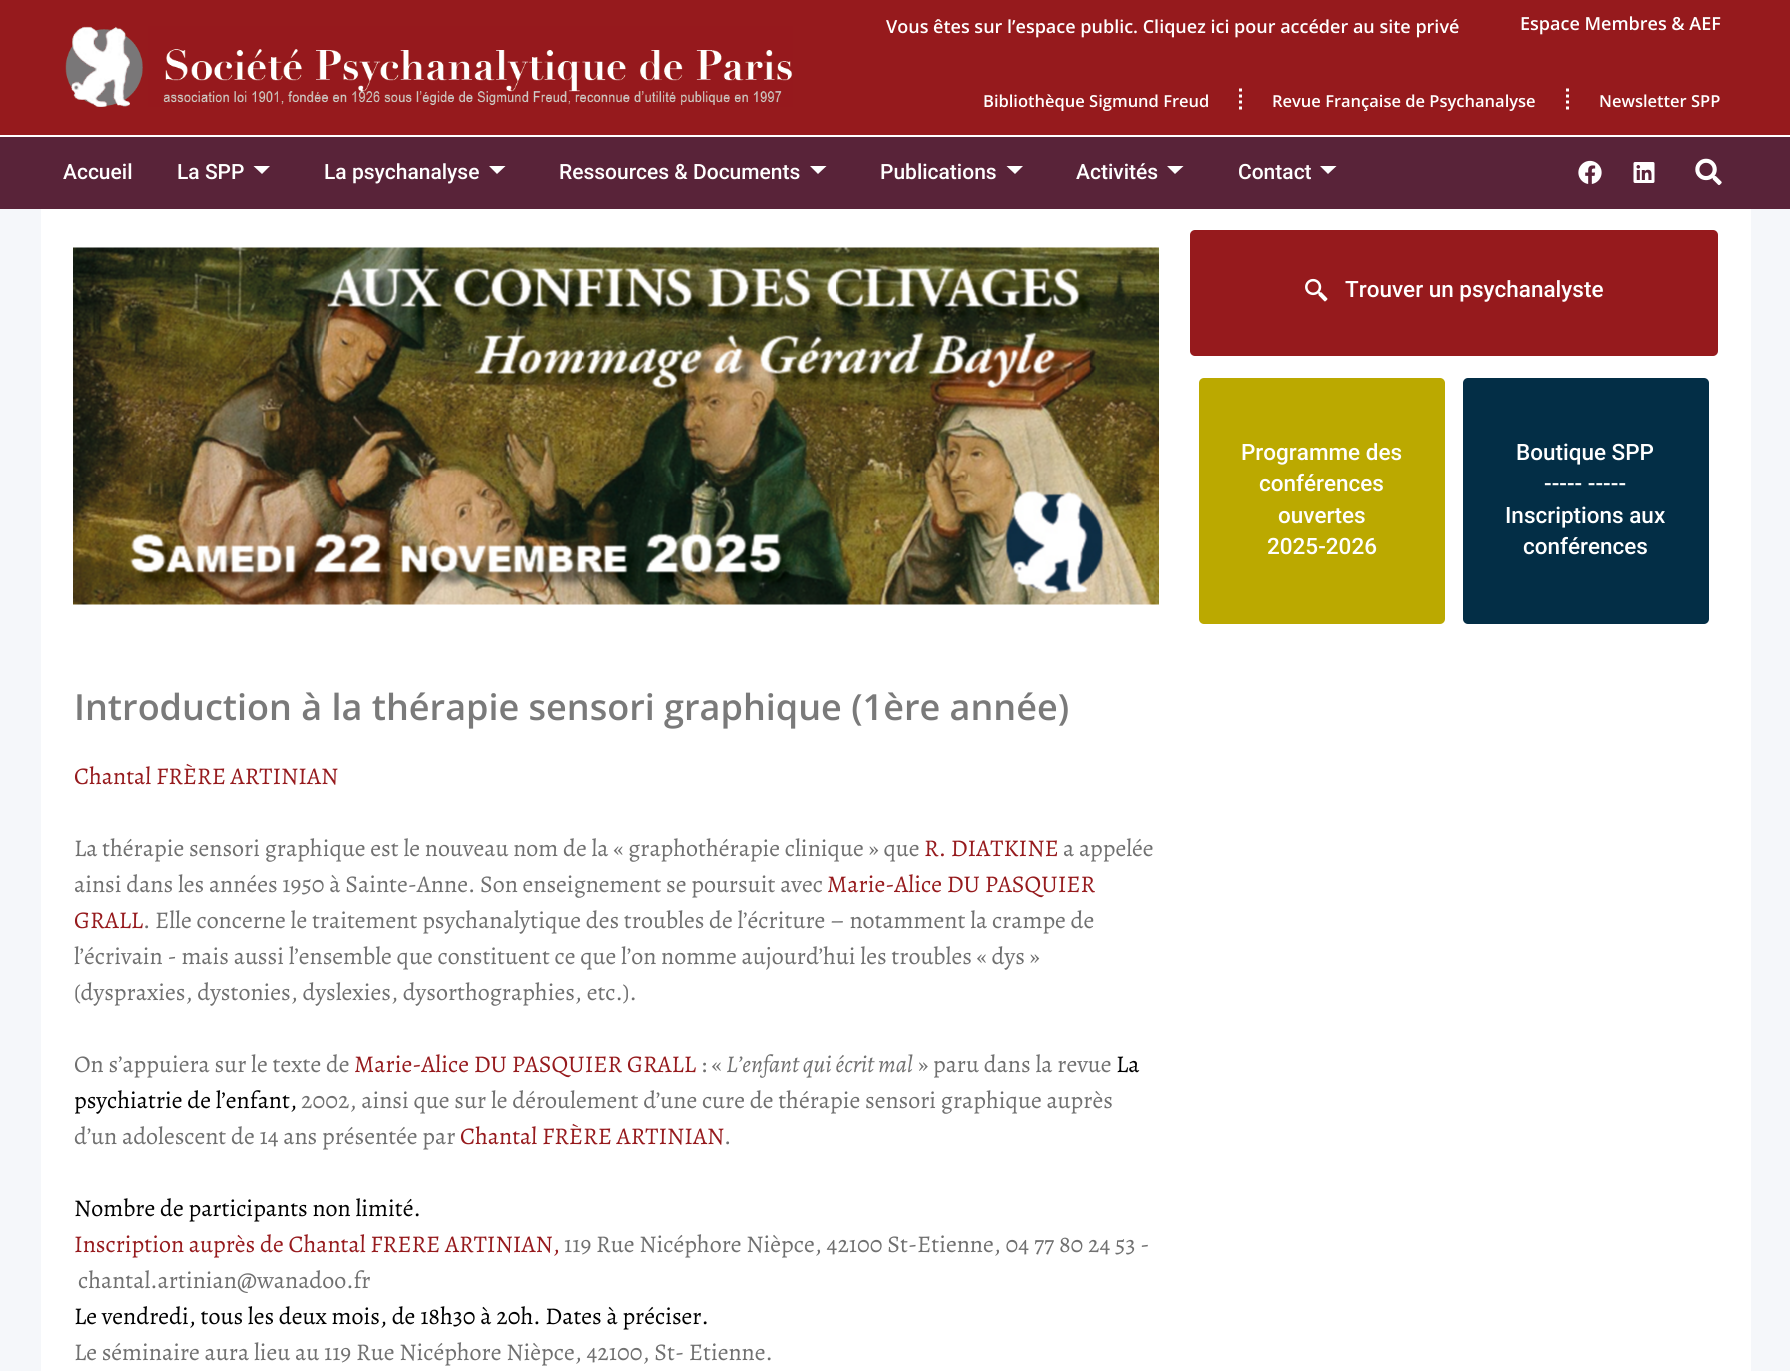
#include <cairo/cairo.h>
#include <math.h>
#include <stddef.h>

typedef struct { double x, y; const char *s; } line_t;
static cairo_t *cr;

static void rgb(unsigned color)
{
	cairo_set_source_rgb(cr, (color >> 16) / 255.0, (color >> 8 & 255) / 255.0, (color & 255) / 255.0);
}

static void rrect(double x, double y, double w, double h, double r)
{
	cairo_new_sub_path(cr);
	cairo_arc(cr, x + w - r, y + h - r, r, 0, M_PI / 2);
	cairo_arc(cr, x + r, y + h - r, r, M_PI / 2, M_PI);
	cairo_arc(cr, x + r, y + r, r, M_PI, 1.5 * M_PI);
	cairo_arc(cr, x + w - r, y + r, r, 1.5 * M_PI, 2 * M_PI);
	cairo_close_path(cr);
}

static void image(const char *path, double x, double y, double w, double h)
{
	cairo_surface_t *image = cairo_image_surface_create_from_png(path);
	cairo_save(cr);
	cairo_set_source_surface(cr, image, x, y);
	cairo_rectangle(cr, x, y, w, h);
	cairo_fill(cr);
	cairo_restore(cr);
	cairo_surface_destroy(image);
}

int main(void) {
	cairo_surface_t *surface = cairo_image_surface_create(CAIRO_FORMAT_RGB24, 1790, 1371);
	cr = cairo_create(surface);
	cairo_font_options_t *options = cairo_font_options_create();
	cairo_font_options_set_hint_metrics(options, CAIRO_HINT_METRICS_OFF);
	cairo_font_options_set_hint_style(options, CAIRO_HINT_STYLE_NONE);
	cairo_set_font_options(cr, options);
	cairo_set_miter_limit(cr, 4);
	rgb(0xf5f7fa);
	cairo_paint(cr);
	rgb(0x961a1d);
	cairo_rectangle(cr, 0, 0, 1790, 135);
	cairo_fill(cr);
	image("img/1.png", 65, 26, 728, 81);
	cairo_new_path(cr);
	cairo_move_to(cr, 1240.5, 88.5);
	cairo_line_to(cr, 1240.5, 112.5);
	rgb(0xffffff);
	cairo_set_line_width(cr, 3);
	cairo_set_dash(cr, (double[]){3, 3}, 2, 0);
	cairo_stroke(cr);
	cairo_new_path(cr);
	cairo_move_to(cr, 1567.5, 88.5);
	cairo_line_to(cr, 1567.5, 112.5);
	cairo_stroke(cr);
	rgb(0x592339);
	cairo_rectangle(cr, 0, 137, 1790, 72);
	cairo_fill(cr);
	rgb(0xffffff);
	cairo_rectangle(cr, 0, 135, 1790, 2);
	cairo_fill(cr);
	cairo_new_path(cr);
	cairo_move_to(cr, 253.5, 166);
	cairo_line_to(cr, 270, 166);
	cairo_line_to(cr, 262, 174);
	cairo_close_path(cr);
	cairo_fill(cr);
	cairo_new_path(cr);
	cairo_move_to(cr, 489, 166);
	cairo_line_to(cr, 505.5, 166);
	cairo_line_to(cr, 497, 174);
	cairo_close_path(cr);
	cairo_fill(cr);
	cairo_new_path(cr);
	cairo_move_to(cr, 810, 166);
	cairo_line_to(cr, 826.5, 166);
	cairo_line_to(cr, 818, 174);
	cairo_close_path(cr);
	cairo_fill(cr);
	cairo_new_path(cr);
	cairo_move_to(cr, 1006.5, 166);
	cairo_line_to(cr, 1023, 166);
	cairo_line_to(cr, 1015, 174);
	cairo_close_path(cr);
	cairo_fill(cr);
	cairo_new_path(cr);
	cairo_move_to(cr, 1167, 166);
	cairo_line_to(cr, 1183.5, 166);
	cairo_line_to(cr, 1175, 174);
	cairo_close_path(cr);
	cairo_fill(cr);
	cairo_new_path(cr);
	cairo_move_to(cr, 1320, 166);
	cairo_line_to(cr, 1336.5, 166);
	cairo_line_to(cr, 1328, 174);
	cairo_close_path(cr);
	cairo_fill(cr);
	image("img/2.png", 1578, 160, 24, 24);
	image("img/3.png", 1633, 162, 22, 21);
	image("img/4.png", 1695, 158, 27, 28);
	cairo_rectangle(cr, 41, 209, 1710, 462);
	cairo_fill(cr);
	image("img/5.png", 73, 247, 1086, 358);
	rgb(0x961a1d);
	rrect(1190, 230, 528, 126, 5);
	cairo_fill(cr);
	image("img/6.png", 1305, 278, 23, 24);
	rgb(0xbba900);
	rrect(1199, 378, 246, 246, 5);
	cairo_fill(cr);
	rgb(0x032e46);
	rrect(1463, 378, 246, 246, 5);
	cairo_fill(cr);
	rgb(0xffffff);
	cairo_rectangle(cr, 41, 671, 1710, 700);
	cairo_fill(cr);
	cairo_select_font_face(cr, "Open Sans SemiBold", CAIRO_FONT_SLANT_NORMAL, CAIRO_FONT_WEIGHT_NORMAL);
	cairo_set_font_size(cr, 18);
	cairo_move_to(cr, 886, 33);
	cairo_show_text(cr, "Vous êtes sur l’espace public. Cliquez ici pour accéder au site privé");
	cairo_move_to(cr, 1520, 30);
	cairo_show_text(cr, "Espace Membres & AEF");
	cairo_set_font_size(cr, 16.5);
	{
		static const line_t items[] = {
			{983, 107, "Bibliothèque Sigmund Freud"},
			{1272, 107, "Revue Française de Psychanalyse"},
			{1599, 107, "Newsletter SPP"},
		};
		for (size_t i = 0; i < sizeof items / sizeof *items; i++) {
			cairo_move_to(cr, items[i].x, items[i].y);
			cairo_show_text(cr, items[i].s);
		}
	}
	cairo_select_font_face(cr, "Roboto Medium", CAIRO_FONT_SLANT_NORMAL, CAIRO_FONT_WEIGHT_NORMAL);
	cairo_set_font_size(cr, 21);
	{
		static const line_t items[] = {
			{63, 179, "Accueil"},
			{177, 179, "La SPP"},
			{324, 179, "La psychanalyse"},
			{559, 179, "Ressources & Documents"},
			{880, 179, "Publications"},
			{1076, 179, "Activités"},
			{1238, 179, "Contact"},
		};
		for (size_t i = 0; i < sizeof items / sizeof *items; i++) {
			cairo_move_to(cr, items[i].x, items[i].y);
			cairo_show_text(cr, items[i].s);
		}
	}
	cairo_set_font_size(cr, 22.5);
	{
		static const line_t items[] = {
			{1345, 297, "Trouver un psychanalyste"},
			{1241, 460, "Programme des"},
			{1259, 491, "conférences"},
			{1278, 523, "ouvertes"},
			{1267, 554, "2025-2026"},
			{1516, 460, "Boutique SPP"},
			{1544, 491, "----- -----"},
			{1505, 523, "Inscriptions aux"},
			{1523, 554, "conférences"},
		};
		for (size_t i = 0; i < sizeof items / sizeof *items; i++) {
			cairo_move_to(cr, items[i].x, items[i].y);
			cairo_show_text(cr, items[i].s);
		}
	}
	cairo_select_font_face(cr, "Open Sans SemiBold", CAIRO_FONT_SLANT_NORMAL, CAIRO_FONT_WEIGHT_NORMAL);
	cairo_set_font_size(cr, 36);
	rgb(0x7a7a7a);
	cairo_move_to(cr, 74, 720);
	cairo_show_text(cr, "Introduction à la thérapie sensori graphique (1ère année)");
	cairo_select_font_face(cr, "Alegreya", CAIRO_FONT_SLANT_NORMAL, CAIRO_FONT_WEIGHT_NORMAL);
	cairo_set_font_size(cr, 24);
	rgb(0x961a1d);
	cairo_move_to(cr, 74, 784);
	cairo_show_text(cr, "Chantal FRÈRE ARTINIAN");
	rgb(0x707070);
	cairo_move_to(cr, 74, 856);
	cairo_show_text(cr, "La thérapie sensori graphique est le nouveau nom de la « graphothérapie clinique » que");
	rgb(0x961a1d);
	cairo_move_to(cr, 924, 856);
	cairo_show_text(cr, "R. DIATKINE");
	rgb(0x707070);
	cairo_move_to(cr, 1063, 856);
	cairo_show_text(cr, "a appelée");
	cairo_move_to(cr, 74, 892);
	cairo_show_text(cr, "ainsi dans les années 1950 à Sainte-Anne. Son enseignement se poursuit avec");
	rgb(0x961a1d);
	cairo_move_to(cr, 827, 892);
	cairo_show_text(cr, "Marie-Alice DU PASQUIER");
	cairo_move_to(cr, 74, 928);
	cairo_show_text(cr, "GRALL");
	rgb(0x707070);
	{
		static const line_t items[] = {
			{143, 928, ". Elle concerne le traitement psychanalytique des troubles de l’écriture – notamment la crampe de"},
			{74, 964, "l’écrivain - mais aussi l’ensemble que constituent ce que l’on nomme aujourd’hui les troubles « dys »"},
			{74, 1000, "(dyspraxies, dystonies, dyslexies, dysorthographies, etc.)."},
			{74, 1072, "On s’appuiera sur le texte de"},
		};
		for (size_t i = 0; i < sizeof items / sizeof *items; i++) {
			cairo_move_to(cr, items[i].x, items[i].y);
			cairo_show_text(cr, items[i].s);
		}
	}
	rgb(0x961a1d);
	cairo_move_to(cr, 354, 1072);
	cairo_show_text(cr, "Marie-Alice DU PASQUIER GRALL");
	rgb(0x707070);
	cairo_move_to(cr, 701, 1072);
	cairo_show_text(cr, ": «");
	cairo_select_font_face(cr, "Alegreya", CAIRO_FONT_SLANT_ITALIC, CAIRO_FONT_WEIGHT_NORMAL);
	cairo_move_to(cr, 726, 1072);
	cairo_show_text(cr, "L’enfant qui écrit mal");
	cairo_select_font_face(cr, "Alegreya", CAIRO_FONT_SLANT_NORMAL, CAIRO_FONT_WEIGHT_NORMAL);
	cairo_move_to(cr, 918, 1072);
	cairo_show_text(cr, "» paru dans la revue");
	rgb(0x000000);
	cairo_move_to(cr, 1116, 1072);
	cairo_show_text(cr, "La");
	cairo_move_to(cr, 74, 1108);
	cairo_show_text(cr, "psychiatrie de l’enfant,");
	rgb(0x707070);
	cairo_move_to(cr, 301, 1108);
	cairo_show_text(cr, "2002, ainsi que sur le déroulement d’une cure de thérapie sensori graphique auprès");
	cairo_move_to(cr, 74, 1144);
	cairo_show_text(cr, "d’un adolescent de 14 ans présentée par");
	rgb(0x961a1d);
	cairo_move_to(cr, 460, 1144);
	cairo_show_text(cr, "Chantal FRÈRE ARTINIAN");
	rgb(0x707070);
	cairo_move_to(cr, 724, 1144);
	cairo_show_text(cr, ".");
	rgb(0x000000);
	cairo_move_to(cr, 74, 1216);
	cairo_show_text(cr, "Nombre de participants non limité.");
	rgb(0x961a1d);
	cairo_move_to(cr, 74, 1252);
	cairo_show_text(cr, "Inscription auprès de Chantal FRERE ARTINIAN,");
	rgb(0x707070);
	cairo_move_to(cr, 564, 1252);
	cairo_show_text(cr, "119 Rue Nicéphore Nièpce, 42100 St-Etienne, 04 77 80 24 53 -");
	cairo_move_to(cr, 78, 1288);
	cairo_show_text(cr, "chantal.artinian@wanadoo.fr");
	rgb(0x000000);
	cairo_move_to(cr, 74, 1324);
	cairo_show_text(cr, "Le vendredi, tous les deux mois, de 18h30 à 20h. Dates à préciser.");
	rgb(0x707070);
	cairo_move_to(cr, 74, 1360);
	cairo_show_text(cr, "Le séminaire aura lieu au 119 Rue Nicéphore Nièpce, 42100, St- Etienne.");
	cairo_surface_write_to_png(surface, "page.png");
	cairo_font_options_destroy(options);
	cairo_destroy(cr);
	cairo_surface_destroy(surface);
	return 0;
}
